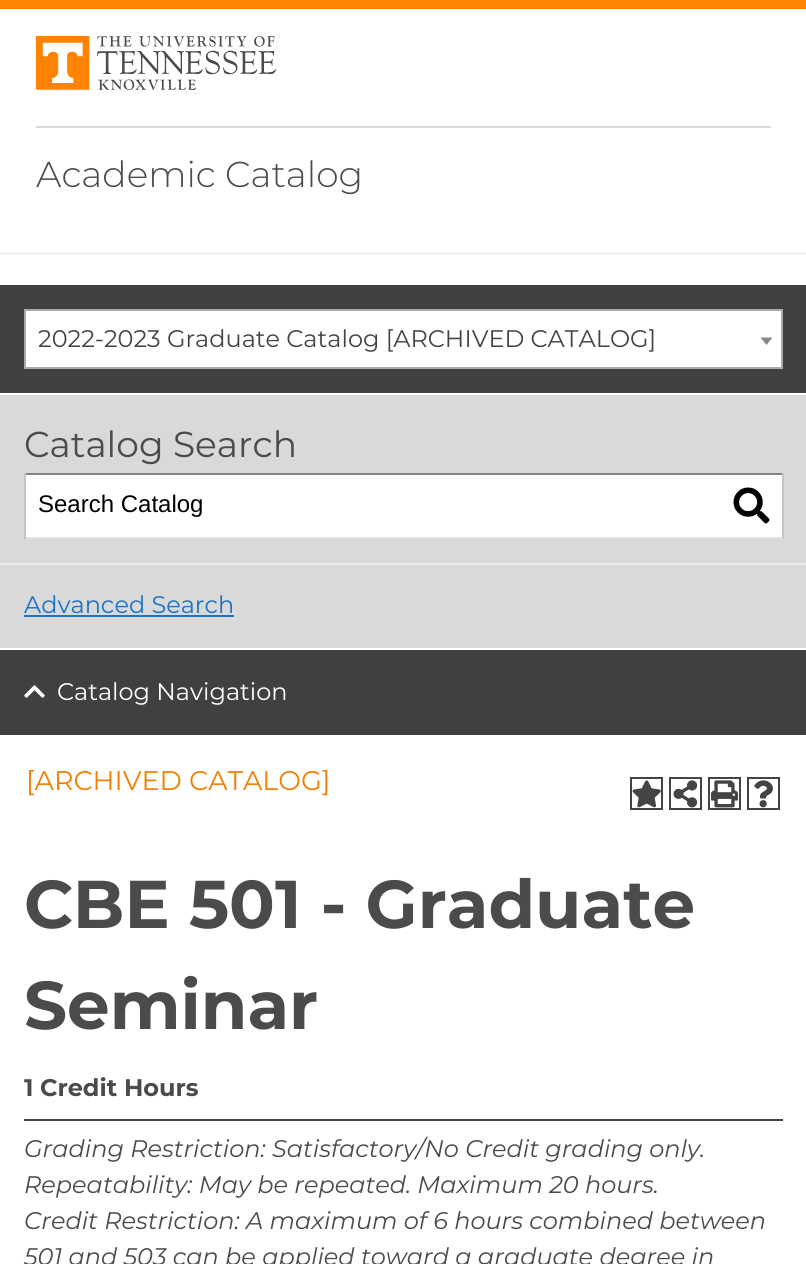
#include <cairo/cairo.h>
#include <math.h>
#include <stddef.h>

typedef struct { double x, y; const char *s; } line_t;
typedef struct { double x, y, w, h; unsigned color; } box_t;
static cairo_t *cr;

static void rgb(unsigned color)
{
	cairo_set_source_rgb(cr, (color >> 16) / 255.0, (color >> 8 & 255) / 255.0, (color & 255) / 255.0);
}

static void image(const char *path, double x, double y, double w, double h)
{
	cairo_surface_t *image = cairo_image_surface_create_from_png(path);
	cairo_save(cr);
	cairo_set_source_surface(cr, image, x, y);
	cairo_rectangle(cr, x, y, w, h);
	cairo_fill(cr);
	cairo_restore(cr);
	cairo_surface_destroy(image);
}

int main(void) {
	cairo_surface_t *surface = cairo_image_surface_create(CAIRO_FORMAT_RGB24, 806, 1264);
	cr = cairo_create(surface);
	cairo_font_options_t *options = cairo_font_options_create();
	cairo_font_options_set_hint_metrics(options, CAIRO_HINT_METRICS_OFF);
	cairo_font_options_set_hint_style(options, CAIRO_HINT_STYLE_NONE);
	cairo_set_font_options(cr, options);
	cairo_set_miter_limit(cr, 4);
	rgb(0xffffff);
	cairo_paint(cr);
	rgb(0xff8200);
	cairo_rectangle(cr, 0, 0, 806, 9);
	cairo_fill(cr);
	image("img/1.png", 36, 36, 240, 54);
	{
		static const box_t items[] = {
			{36, 126, 735, 2, 0xd9d9d9},
			{0, 252, 806, 3, 0xf6f6f6},
			{0, 285, 806, 108, 0x404040},
		};
		for (size_t i = 0; i < sizeof items / sizeof *items; i++) {
			rgb(items[i].color);
			cairo_rectangle(cr, items[i].x, items[i].y, items[i].w, items[i].h);
			cairo_fill(cr);
		}
	}
	rgb(0xffffff);
	cairo_rectangle(cr, 25, 310, 757, 58);
	cairo_fill_preserve(cr);
	rgb(0xaaaaaa);
	cairo_stroke(cr);
	rgb(0x888888);
	cairo_new_path(cr);
	cairo_move_to(cr, 760.5, 337.5);
	cairo_line_to(cr, 772.5, 337.5);
	cairo_line_to(cr, 766.5, 345);
	cairo_close_path(cr);
	cairo_fill(cr);
	{
		static const box_t items[] = {
			{0, 395, 806, 253, 0xd9d9d9},
			{26, 475, 756, 62, 0xffffff},
			{24, 473, 759, 2, 0x848484},
			{782, 473, 2, 66, 0xc1c1c1},
			{24, 537, 759, 2, 0xe1e1e1},
			{24, 473, 2, 66, 0xc1c1c1},
		};
		for (size_t i = 0; i < sizeof items / sizeof *items; i++) {
			rgb(items[i].color);
			cairo_rectangle(cr, items[i].x, items[i].y, items[i].w, items[i].h);
			cairo_fill(cr);
		}
	}
	image("img/2.png", 733, 487, 37, 37);
	{
		static const box_t items[] = {
			{0, 563, 806, 2, 0xececec},
			{24, 615, 210, 2, 0x1a73c5},
			{0, 650, 806, 85, 0x404040},
		};
		for (size_t i = 0; i < sizeof items / sizeof *items; i++) {
			rgb(items[i].color);
			cairo_rectangle(cr, items[i].x, items[i].y, items[i].w, items[i].h);
			cairo_fill(cr);
		}
	}
	image("img/3.png", 24, 685, 21, 13);
	cairo_rectangle(cr, 631, 778, 31, 31);
	rgb(0x444444);
	cairo_stroke(cr);
	image("img/4.png", 632, 780, 29, 28);
	cairo_rectangle(cr, 670, 778, 31, 31);
	cairo_stroke(cr);
	image("img/5.png", 673, 780, 25, 28);
	cairo_rectangle(cr, 709, 778, 31, 31);
	cairo_stroke(cr);
	image("img/6.png", 711, 780, 27, 28);
	cairo_rectangle(cr, 748, 778, 31, 31);
	cairo_stroke(cr);
	image("img/7.png", 754, 780, 19, 28);
	cairo_rectangle(cr, 24, 1119, 759, 2);
	cairo_fill(cr);
	cairo_select_font_face(cr, "Montserrat Light", CAIRO_FONT_SLANT_NORMAL, CAIRO_FONT_WEIGHT_NORMAL);
	cairo_set_font_size(cr, 36);
	rgb(0x4b4b4b);
	cairo_move_to(cr, 36, 187);
	cairo_show_text(cr, "Academic Catalog");
	cairo_select_font_face(cr, "Montserrat", CAIRO_FONT_SLANT_NORMAL, CAIRO_FONT_WEIGHT_NORMAL);
	cairo_set_font_size(cr, 24);
	rgb(0x444444);
	cairo_move_to(cr, 38, 347);
	cairo_show_text(cr, "2022-2023 Graduate Catalog [ARCHIVED CATALOG]");
	cairo_set_font_size(cr, 36);
	rgb(0x4b4b4b);
	cairo_move_to(cr, 24, 457);
	cairo_show_text(cr, "Catalog Search");
	cairo_select_font_face(cr, "Liberation Sans", CAIRO_FONT_SLANT_NORMAL, CAIRO_FONT_WEIGHT_NORMAL);
	cairo_set_font_size(cr, 24);
	rgb(0x000000);
	cairo_move_to(cr, 38, 512);
	cairo_show_text(cr, "Search Catalog");
	cairo_select_font_face(cr, "Montserrat", CAIRO_FONT_SLANT_NORMAL, CAIRO_FONT_WEIGHT_NORMAL);
	rgb(0x1a73c5);
	cairo_move_to(cr, 24, 613);
	cairo_show_text(cr, "Advanced Search");
	rgb(0xffffff);
	cairo_move_to(cr, 57, 700);
	cairo_show_text(cr, "Catalog Navigation");
	cairo_set_font_size(cr, 27);
	rgb(0xf28003);
	cairo_move_to(cr, 26, 790);
	cairo_show_text(cr, "[ARCHIVED CATALOG]");
	cairo_select_font_face(cr, "Montserrat", CAIRO_FONT_SLANT_NORMAL, CAIRO_FONT_WEIGHT_BOLD);
	cairo_set_font_size(cr, 67.5);
	rgb(0x4b4b4b);
	cairo_move_to(cr, 24, 928);
	cairo_show_text(cr, "CBE 501 - Graduate");
	cairo_move_to(cr, 24, 1029);
	cairo_show_text(cr, "Seminar");
	cairo_set_font_size(cr, 24);
	cairo_move_to(cr, 24, 1096);
	cairo_show_text(cr, "1");
	cairo_move_to(cr, 40, 1096);
	cairo_show_text(cr, "Credit Hours");
	cairo_select_font_face(cr, "Montserrat", CAIRO_FONT_SLANT_ITALIC, CAIRO_FONT_WEIGHT_NORMAL);
	{
		static const line_t items[] = {
			{24, 1157, "Grading Restriction: Satisfactory/No Credit grading only."},
			{24, 1193, "Repeatability: May be repeated. Maximum 20 hours."},
			{24, 1229, "Credit Restriction: A maximum of 6 hours combined between"},
			{24, 1265, "501 and 503 can be applied toward a graduate degree in"},
		};
		for (size_t i = 0; i < sizeof items / sizeof *items; i++) {
			cairo_move_to(cr, items[i].x, items[i].y);
			cairo_show_text(cr, items[i].s);
		}
	}
	cairo_surface_write_to_png(surface, "page.png");
	cairo_font_options_destroy(options);
	cairo_destroy(cr);
	cairo_surface_destroy(surface);
	return 0;
}
